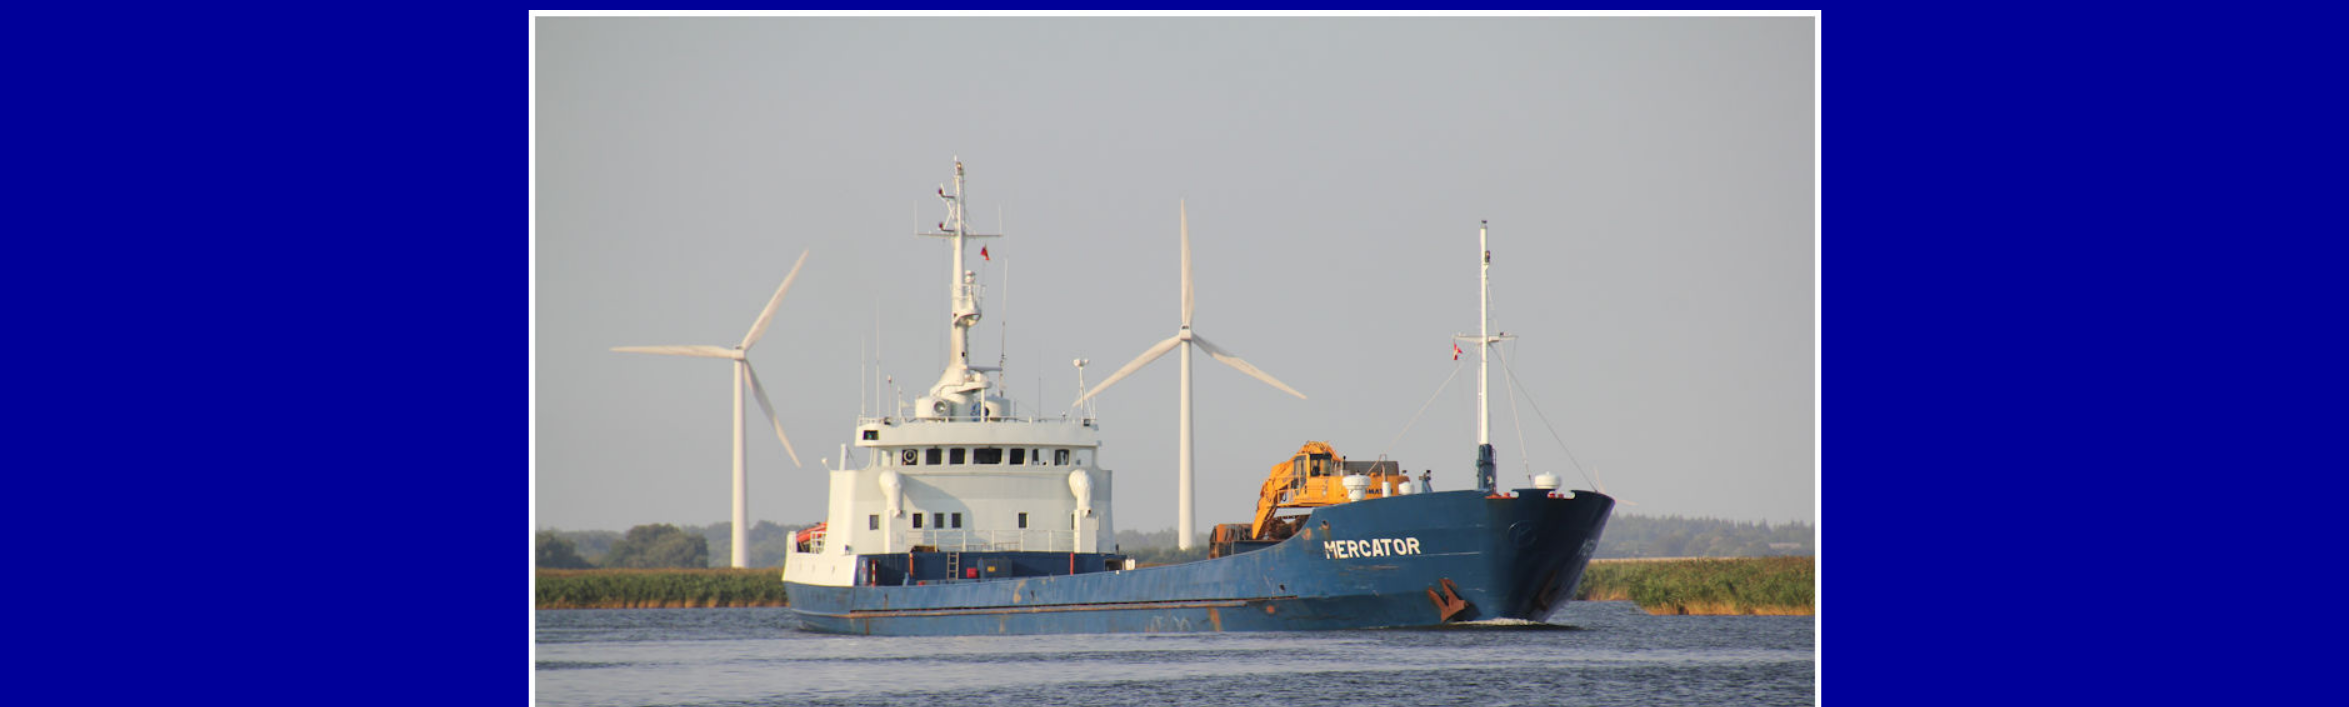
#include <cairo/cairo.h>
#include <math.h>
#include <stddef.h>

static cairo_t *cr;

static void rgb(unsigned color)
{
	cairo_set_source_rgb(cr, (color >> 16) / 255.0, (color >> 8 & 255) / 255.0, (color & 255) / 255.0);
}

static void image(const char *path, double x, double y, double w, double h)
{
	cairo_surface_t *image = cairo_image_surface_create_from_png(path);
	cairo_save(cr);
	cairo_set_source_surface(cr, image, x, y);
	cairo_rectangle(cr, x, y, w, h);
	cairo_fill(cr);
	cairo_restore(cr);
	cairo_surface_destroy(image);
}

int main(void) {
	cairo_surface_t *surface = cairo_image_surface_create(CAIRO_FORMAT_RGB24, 2349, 707);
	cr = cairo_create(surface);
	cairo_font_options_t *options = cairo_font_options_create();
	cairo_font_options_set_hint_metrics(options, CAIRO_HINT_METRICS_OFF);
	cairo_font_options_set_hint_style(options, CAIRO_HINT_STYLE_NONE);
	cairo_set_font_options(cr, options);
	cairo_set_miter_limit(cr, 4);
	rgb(0x000099);
	cairo_paint(cr);
	image("img/1.png", 528, 10, 1294, 697);
	cairo_surface_write_to_png(surface, "page.png");
	cairo_font_options_destroy(options);
	cairo_destroy(cr);
	cairo_surface_destroy(surface);
	return 0;
}
